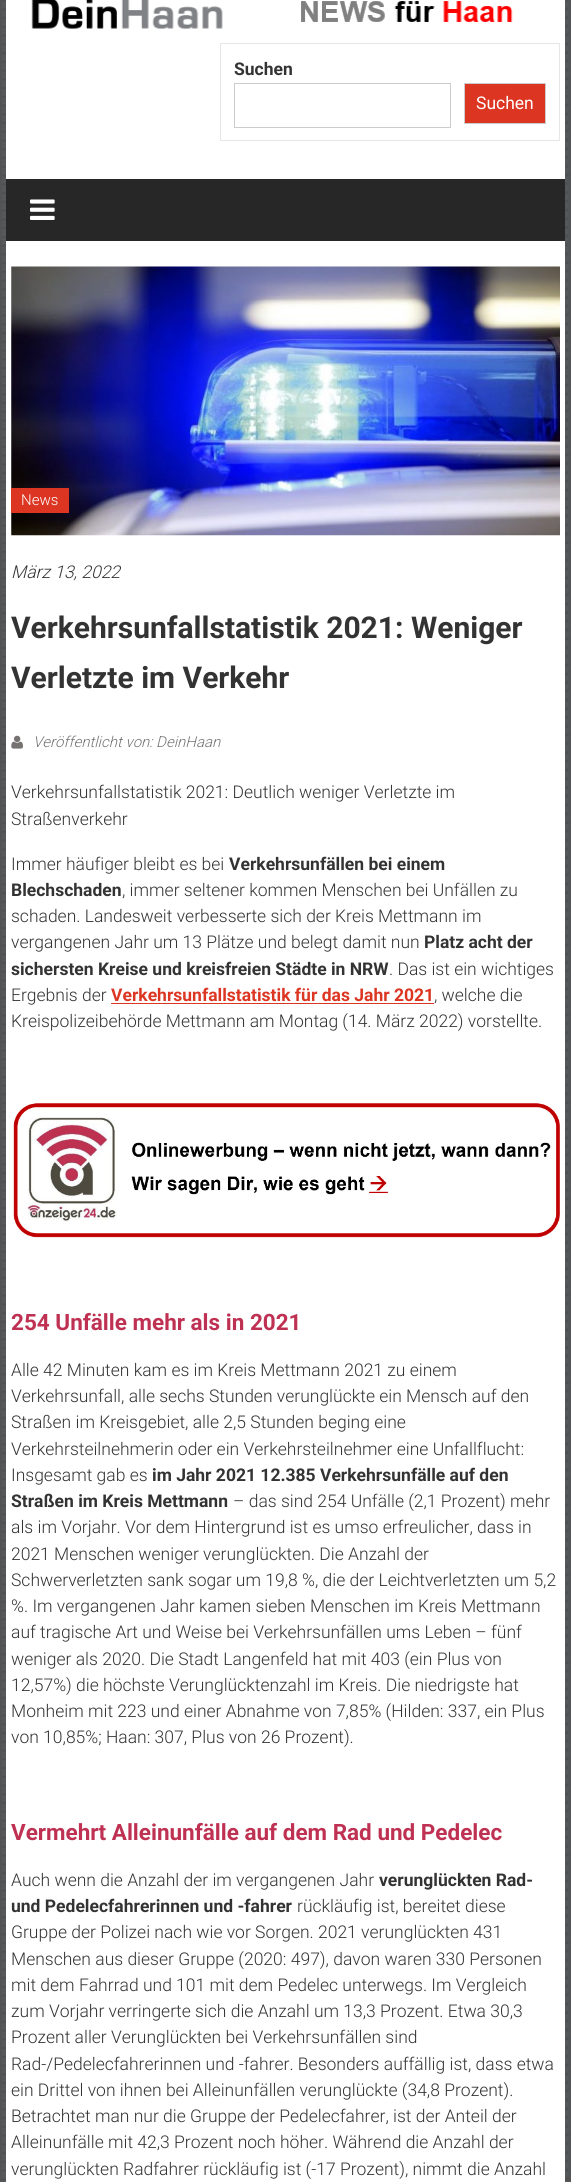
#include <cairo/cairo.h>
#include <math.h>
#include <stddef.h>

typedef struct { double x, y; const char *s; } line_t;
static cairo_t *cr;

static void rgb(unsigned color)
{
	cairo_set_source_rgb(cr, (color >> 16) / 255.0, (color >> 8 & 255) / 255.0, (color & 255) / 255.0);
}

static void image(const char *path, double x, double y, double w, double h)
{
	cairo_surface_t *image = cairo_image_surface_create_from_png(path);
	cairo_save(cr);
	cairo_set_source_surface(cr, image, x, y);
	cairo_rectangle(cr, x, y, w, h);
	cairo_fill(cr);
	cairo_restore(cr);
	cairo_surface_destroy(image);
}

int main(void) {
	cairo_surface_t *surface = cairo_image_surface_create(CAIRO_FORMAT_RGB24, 571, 2182);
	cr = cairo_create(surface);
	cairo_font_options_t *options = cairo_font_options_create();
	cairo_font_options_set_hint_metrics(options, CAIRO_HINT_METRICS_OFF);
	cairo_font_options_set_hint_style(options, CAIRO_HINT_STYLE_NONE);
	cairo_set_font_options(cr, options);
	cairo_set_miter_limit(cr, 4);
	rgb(0xffffff);
	cairo_paint(cr);
	image("img/1.png", 0, 0, 571, 2182);
	rgb(0xffffff);
	cairo_rectangle(cr, 6, 0, 559, 2182);
	cairo_fill(cr);
	image("img/2.png", 31, 0, 482, 29);
	cairo_rectangle(cr, 220.5, 43.5, 339, 97);
	rgb(0xe6e6e6);
	cairo_set_line_width(cr, 1);
	cairo_stroke(cr);
	cairo_rectangle(cr, 234.5, 83.5, 216, 44);
	rgb(0xcccccc);
	cairo_stroke(cr);
	rgb(0xdc3522);
	cairo_rectangle(cr, 464.5, 83.5, 81, 40);
	cairo_fill_preserve(cr);
	rgb(0xcccccc);
	cairo_stroke(cr);
	rgb(0x272727);
	cairo_rectangle(cr, 6, 179, 559, 62);
	cairo_fill(cr);
	image("img/3.png", 30, 199, 25, 21);
	image("img/4.png", 11, 266, 549, 270);
	rgb(0xdc3522);
	cairo_rectangle(cr, 11, 488, 58, 25);
	cairo_fill(cr);
	image("img/5.png", 11, 735, 12, 14);
	cairo_rectangle(cr, 111, 1003, 323, 1);
	cairo_fill(cr);
	image("img/6.png", 13, 1103, 547, 135);
	cairo_select_font_face(cr, "Roboto", CAIRO_FONT_SLANT_NORMAL, CAIRO_FONT_WEIGHT_BOLD);
	cairo_set_font_size(cr, 17.5);
	rgb(0x333333);
	cairo_move_to(cr, 234, 75);
	cairo_show_text(cr, "Suchen");
	cairo_select_font_face(cr, "Roboto", CAIRO_FONT_SLANT_NORMAL, CAIRO_FONT_WEIGHT_NORMAL);
	rgb(0xffffff);
	cairo_move_to(cr, 476, 109);
	cairo_show_text(cr, "Suchen");
	cairo_select_font_face(cr, "Roboto Light", CAIRO_FONT_SLANT_NORMAL, CAIRO_FONT_WEIGHT_NORMAL);
	cairo_set_font_size(cr, 15);
	cairo_move_to(cr, 21, 505);
	cairo_show_text(cr, "News");
	cairo_select_font_face(cr, "Roboto Light", CAIRO_FONT_SLANT_ITALIC, CAIRO_FONT_WEIGHT_NORMAL);
	cairo_set_font_size(cr, 17.5);
	rgb(0x333333);
	cairo_move_to(cr, 11, 578);
	cairo_show_text(cr, "März 13, 2022");
	cairo_select_font_face(cr, "Roboto", CAIRO_FONT_SLANT_NORMAL, CAIRO_FONT_WEIGHT_BOLD);
	cairo_set_font_size(cr, 30);
	cairo_move_to(cr, 11, 638);
	cairo_show_text(cr, "Verkehrsunfallstatistik 2021: Weniger");
	cairo_move_to(cr, 11, 688);
	cairo_show_text(cr, "Verletzte im Verkehr");
	cairo_select_font_face(cr, "Roboto Light", CAIRO_FONT_SLANT_ITALIC, CAIRO_FONT_WEIGHT_NORMAL);
	cairo_set_font_size(cr, 15);
	rgb(0x767272);
	cairo_move_to(cr, 33, 747);
	cairo_show_text(cr, "Veröffentlicht von: DeinHaan");
	cairo_select_font_face(cr, "Roboto Light", CAIRO_FONT_SLANT_NORMAL, CAIRO_FONT_WEIGHT_NORMAL);
	cairo_set_font_size(cr, 17.5);
	rgb(0x333333);
	{
		static const line_t items[] = {
			{11, 798, "Verkehrsunfallstatistik 2021: Deutlich weniger Verletzte im"},
			{11, 825, "Straßenverkehr"},
			{11, 870, "Immer häufiger bleibt es bei"},
		};
		for (size_t i = 0; i < sizeof items / sizeof *items; i++) {
			cairo_move_to(cr, items[i].x, items[i].y);
			cairo_show_text(cr, items[i].s);
		}
	}
	cairo_select_font_face(cr, "Roboto", CAIRO_FONT_SLANT_NORMAL, CAIRO_FONT_WEIGHT_BOLD);
	cairo_move_to(cr, 229, 870);
	cairo_show_text(cr, "Verkehrsunfällen bei einem");
	cairo_move_to(cr, 11, 896);
	cairo_show_text(cr, "Blechschaden");
	cairo_select_font_face(cr, "Roboto Light", CAIRO_FONT_SLANT_NORMAL, CAIRO_FONT_WEIGHT_NORMAL);
	{
		static const line_t items[] = {
			{122, 896, ", immer seltener kommen Menschen bei Unfällen zu"},
			{11, 922, "schaden. Landesweit verbesserte sich der Kreis Mettmann im"},
			{11, 948, "vergangenen Jahr um 13 Plätze und belegt damit nun"},
		};
		for (size_t i = 0; i < sizeof items / sizeof *items; i++) {
			cairo_move_to(cr, items[i].x, items[i].y);
			cairo_show_text(cr, items[i].s);
		}
	}
	cairo_select_font_face(cr, "Roboto", CAIRO_FONT_SLANT_NORMAL, CAIRO_FONT_WEIGHT_BOLD);
	cairo_move_to(cr, 424, 948);
	cairo_show_text(cr, "Platz acht der");
	cairo_move_to(cr, 11, 975);
	cairo_show_text(cr, "sichersten Kreise und kreisfreien Städte in NRW");
	cairo_select_font_face(cr, "Roboto Light", CAIRO_FONT_SLANT_NORMAL, CAIRO_FONT_WEIGHT_NORMAL);
	cairo_move_to(cr, 389, 975);
	cairo_show_text(cr, ". Das ist ein wichtiges");
	cairo_move_to(cr, 11, 1001);
	cairo_show_text(cr, "Ergebnis der");
	cairo_select_font_face(cr, "Roboto", CAIRO_FONT_SLANT_NORMAL, CAIRO_FONT_WEIGHT_BOLD);
	rgb(0xdc3522);
	cairo_move_to(cr, 111, 1001);
	cairo_show_text(cr, "Verkehrsunfallstatistik für das Jahr 2021");
	cairo_select_font_face(cr, "Roboto Light", CAIRO_FONT_SLANT_NORMAL, CAIRO_FONT_WEIGHT_NORMAL);
	rgb(0x333333);
	cairo_move_to(cr, 434, 1001);
	cairo_show_text(cr, ", welche die");
	cairo_move_to(cr, 11, 1027);
	cairo_show_text(cr, "Kreispolizeibehörde Mettmann am Montag (14. März 2022) vorstellte.");
	cairo_select_font_face(cr, "Roboto", CAIRO_FONT_SLANT_NORMAL, CAIRO_FONT_WEIGHT_BOLD);
	cairo_set_font_size(cr, 22.5);
	rgb(0xbf3152);
	cairo_move_to(cr, 11, 1330);
	cairo_show_text(cr, "254 Unfälle mehr als in 2021");
	cairo_select_font_face(cr, "Roboto Light", CAIRO_FONT_SLANT_NORMAL, CAIRO_FONT_WEIGHT_NORMAL);
	cairo_set_font_size(cr, 17.5);
	rgb(0x333333);
	{
		static const line_t items[] = {
			{11, 1376, "Alle 42 Minuten kam es im Kreis Mettmann 2021 zu einem"},
			{11, 1402, "Verkehrsunfall, alle sechs Stunden verunglückte ein Mensch auf den"},
			{11, 1428, "Straßen im Kreisgebiet, alle 2,5 Stunden beging eine"},
			{11, 1455, "Verkehrsteilnehmerin oder ein Verkehrsteilnehmer eine Unfallflucht:"},
			{11, 1481, "Insgesamt gab es"},
		};
		for (size_t i = 0; i < sizeof items / sizeof *items; i++) {
			cairo_move_to(cr, items[i].x, items[i].y);
			cairo_show_text(cr, items[i].s);
		}
	}
	cairo_select_font_face(cr, "Roboto", CAIRO_FONT_SLANT_NORMAL, CAIRO_FONT_WEIGHT_BOLD);
	cairo_move_to(cr, 152, 1481);
	cairo_show_text(cr, "im Jahr 2021 12.385 Verkehrsunfälle auf den");
	cairo_move_to(cr, 11, 1507);
	cairo_show_text(cr, "Straßen im Kreis Mettmann");
	cairo_select_font_face(cr, "Roboto Light", CAIRO_FONT_SLANT_NORMAL, CAIRO_FONT_WEIGHT_NORMAL);
	{
		static const line_t items[] = {
			{233, 1507, "– das sind 254 Unfälle (2,1 Prozent) mehr"},
			{11, 1533, "als im Vorjahr. Vor dem Hintergrund ist es umso erfreulicher, dass in"},
			{11, 1560, "2021 Menschen weniger verunglückten. Die Anzahl der"},
			{11, 1586, "Schwerverletzten sank sogar um 19,8 %, die der Leichtverletzten um 5,2"},
			{11, 1612, "%. Im vergangenen Jahr kamen sieben Menschen im Kreis Mettmann"},
			{11, 1638, "auf tragische Art und Weise bei Verkehrsunfällen ums Leben – fünf"},
			{11, 1665, "weniger als 2020. Die Stadt Langenfeld hat mit 403 (ein Plus von"},
			{11, 1691, "12,57%) die höchste Verunglücktenzahl im Kreis. Die niedrigste hat"},
			{11, 1717, "Monheim mit 223 und einer Abnahme von 7,85% (Hilden: 337, ein Plus"},
			{11, 1743, "von 10,85%; Haan: 307, Plus von 26 Prozent)."},
		};
		for (size_t i = 0; i < sizeof items / sizeof *items; i++) {
			cairo_move_to(cr, items[i].x, items[i].y);
			cairo_show_text(cr, items[i].s);
		}
	}
	cairo_select_font_face(cr, "Roboto", CAIRO_FONT_SLANT_NORMAL, CAIRO_FONT_WEIGHT_BOLD);
	cairo_set_font_size(cr, 22.5);
	rgb(0xbf3152);
	cairo_move_to(cr, 11, 1840);
	cairo_show_text(cr, "Vermehrt Alleinunfälle auf dem Rad und Pedelec");
	cairo_select_font_face(cr, "Roboto Light", CAIRO_FONT_SLANT_NORMAL, CAIRO_FONT_WEIGHT_NORMAL);
	cairo_set_font_size(cr, 17.5);
	rgb(0x333333);
	cairo_move_to(cr, 11, 1886);
	cairo_show_text(cr, "Auch wenn die Anzahl der im vergangenen Jahr");
	cairo_select_font_face(cr, "Roboto", CAIRO_FONT_SLANT_NORMAL, CAIRO_FONT_WEIGHT_BOLD);
	cairo_move_to(cr, 379, 1886);
	cairo_show_text(cr, "verunglückten Rad-");
	cairo_move_to(cr, 11, 1912);
	cairo_show_text(cr, "und Pedelecfahrerinnen und -fahrer");
	cairo_select_font_face(cr, "Roboto Light", CAIRO_FONT_SLANT_NORMAL, CAIRO_FONT_WEIGHT_NORMAL);
	{
		static const line_t items[] = {
			{297, 1912, "rückläufig ist, bereitet diese"},
			{11, 1938, "Gruppe der Polizei nach wie vor Sorgen. 2021 verunglückten 431"},
			{11, 1965, "Menschen aus dieser Gruppe (2020: 497), davon waren 330 Personen"},
			{11, 1991, "mit dem Fahrrad und 101 mit dem Pedelec unterwegs. Im Vergleich"},
			{11, 2017, "zum Vorjahr verringerte sich die Anzahl um 13,3 Prozent. Etwa 30,3"},
			{11, 2043, "Prozent aller Verunglückten bei Verkehrsunfällen sind"},
			{11, 2070, "Rad-/Pedelecfahrerinnen und -fahrer. Besonders auffällig ist, dass etwa"},
			{11, 2096, "ein Drittel von ihnen bei Alleinunfällen verunglückte (34,8 Prozent)."},
			{11, 2122, "Betrachtet man nur die Gruppe der Pedelecfahrer, ist der Anteil der"},
			{11, 2148, "Alleinunfälle mit 42,3 Prozent noch höher. Während die Anzahl der"},
			{11, 2175, "verunglückten Radfahrer rückläufig ist (-17 Prozent), nimmt die Anzahl"},
		};
		for (size_t i = 0; i < sizeof items / sizeof *items; i++) {
			cairo_move_to(cr, items[i].x, items[i].y);
			cairo_show_text(cr, items[i].s);
		}
	}
	cairo_surface_write_to_png(surface, "page.png");
	cairo_font_options_destroy(options);
	cairo_destroy(cr);
	cairo_surface_destroy(surface);
	return 0;
}
